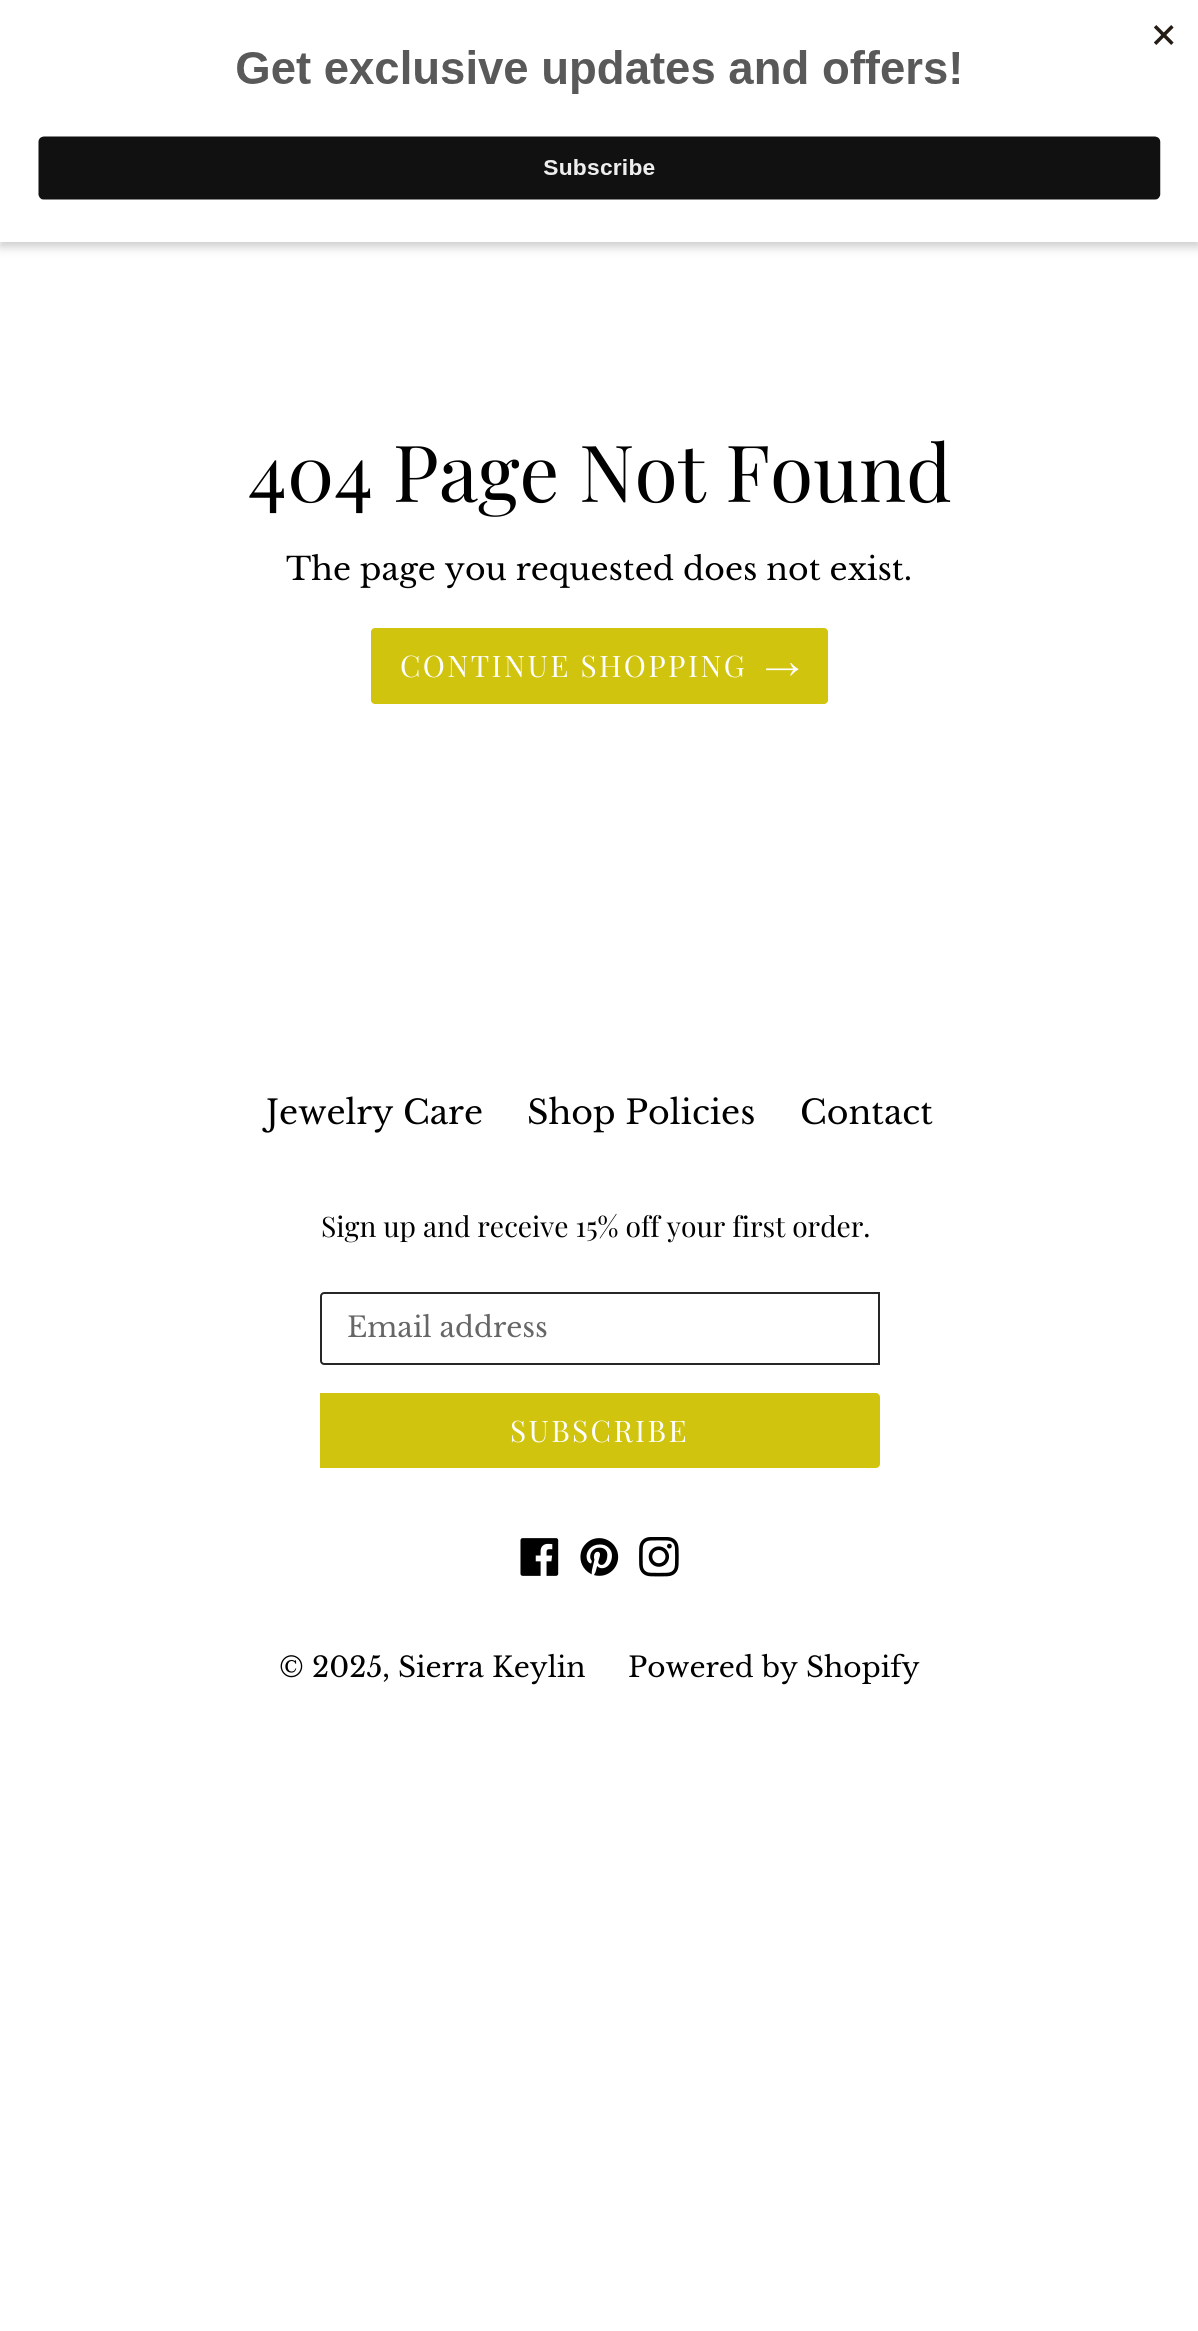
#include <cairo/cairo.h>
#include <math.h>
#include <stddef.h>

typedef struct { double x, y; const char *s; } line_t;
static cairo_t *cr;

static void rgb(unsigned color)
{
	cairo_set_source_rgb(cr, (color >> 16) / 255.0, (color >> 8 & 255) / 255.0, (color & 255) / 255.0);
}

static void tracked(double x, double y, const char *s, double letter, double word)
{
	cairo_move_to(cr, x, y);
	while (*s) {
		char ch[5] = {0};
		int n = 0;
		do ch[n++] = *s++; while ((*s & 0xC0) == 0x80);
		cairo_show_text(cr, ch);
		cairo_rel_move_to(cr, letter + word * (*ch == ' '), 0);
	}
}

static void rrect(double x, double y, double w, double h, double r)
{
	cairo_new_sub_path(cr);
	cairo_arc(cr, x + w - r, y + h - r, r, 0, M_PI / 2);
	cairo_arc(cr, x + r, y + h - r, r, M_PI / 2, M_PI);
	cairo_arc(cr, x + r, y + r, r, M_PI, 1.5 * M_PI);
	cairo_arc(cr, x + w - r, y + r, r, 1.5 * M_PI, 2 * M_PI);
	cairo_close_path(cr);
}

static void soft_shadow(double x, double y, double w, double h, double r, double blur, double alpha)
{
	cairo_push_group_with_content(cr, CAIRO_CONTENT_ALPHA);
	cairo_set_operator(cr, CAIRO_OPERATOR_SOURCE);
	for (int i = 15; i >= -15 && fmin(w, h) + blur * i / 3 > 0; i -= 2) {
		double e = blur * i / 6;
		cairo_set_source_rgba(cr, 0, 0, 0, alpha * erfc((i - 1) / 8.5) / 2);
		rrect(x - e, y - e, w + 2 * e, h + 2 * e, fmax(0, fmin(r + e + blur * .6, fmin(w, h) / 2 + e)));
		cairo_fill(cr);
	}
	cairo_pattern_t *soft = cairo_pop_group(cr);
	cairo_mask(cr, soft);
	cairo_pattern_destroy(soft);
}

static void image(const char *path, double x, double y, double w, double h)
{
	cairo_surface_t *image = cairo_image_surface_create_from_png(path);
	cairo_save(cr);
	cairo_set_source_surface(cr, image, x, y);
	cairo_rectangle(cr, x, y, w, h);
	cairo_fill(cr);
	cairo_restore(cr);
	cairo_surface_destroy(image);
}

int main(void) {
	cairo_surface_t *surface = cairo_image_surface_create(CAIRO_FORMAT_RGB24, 1198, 2331);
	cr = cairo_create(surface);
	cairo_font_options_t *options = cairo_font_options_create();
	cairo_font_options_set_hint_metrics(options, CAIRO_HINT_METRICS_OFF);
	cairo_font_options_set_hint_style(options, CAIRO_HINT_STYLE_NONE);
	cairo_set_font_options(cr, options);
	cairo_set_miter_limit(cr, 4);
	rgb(0xffffff);
	cairo_paint(cr);
	rgb(0x000000);
	soft_shadow(0, 5, 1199, 242, 0, 5, 0.2);
	rgb(0xffffff);
	cairo_rectangle(cr, 0, 0, 1198, 242);
	cairo_fill(cr);
	image("img/1.png", 38, 25, 1136, 175);
	rgb(0xd1c40e);
	rrect(371, 628, 457, 76, 4);
	cairo_fill(cr);
	image("img/2.png", 766, 663, 33, 13);
	cairo_new_path(cr);
	cairo_move_to(cr, 324, 1293);
	cairo_line_to(cr, 879, 1293);
	cairo_line_to(cr, 879, 1364);
	cairo_line_to(cr, 324, 1364);
	cairo_curve_to(cr, 322.5, 1364, 321, 1362.5, 321, 1361);
	cairo_line_to(cr, 321, 1296);
	cairo_curve_to(cr, 321, 1294.5, 322.5, 1293, 324, 1293);
	cairo_close_path(cr);
	rgb(0x262626);
	cairo_stroke(cr);
	rgb(0xd1c40e);
	cairo_new_path(cr);
	cairo_move_to(cr, 320, 1393);
	cairo_line_to(cr, 876, 1393);
	cairo_curve_to(cr, 878, 1393, 880, 1395, 880, 1397);
	cairo_line_to(cr, 880, 1464);
	cairo_curve_to(cr, 880, 1466, 878, 1468, 876, 1468);
	cairo_line_to(cr, 320, 1468);
	cairo_close_path(cr);
	cairo_fill(cr);
	image("img/3.png", 520, 1538, 39, 38);
	image("img/4.png", 580, 1538, 39, 38);
	image("img/5.png", 639, 1537, 40, 40);
	cairo_select_font_face(cr, "Playfair Display", CAIRO_FONT_SLANT_NORMAL, CAIRO_FONT_WEIGHT_NORMAL);
	cairo_set_font_size(cr, 78.75);
	rgb(0x000000);
	cairo_move_to(cr, 248, 502);
	cairo_show_text(cr, "404 Page Not Found");
	cairo_select_font_face(cr, "Libre Baskerville", CAIRO_FONT_SLANT_NORMAL, CAIRO_FONT_WEIGHT_NORMAL);
	cairo_set_font_size(cr, 31.5);
	cairo_move_to(cr, 286, 580);
	cairo_show_text(cr, "The page you requested does not exist.");
	cairo_select_font_face(cr, "Playfair Display", CAIRO_FONT_SLANT_NORMAL, CAIRO_FONT_WEIGHT_NORMAL);
	cairo_set_font_size(cr, 29.75);
	rgb(0xffffff);
	tracked(400, 677, "CONTINUE SHOPPING", 2.4, 0);
	cairo_select_font_face(cr, "Libre Baskerville", CAIRO_FONT_SLANT_NORMAL, CAIRO_FONT_WEIGHT_NORMAL);
	cairo_set_font_size(cr, 33.25);
	rgb(0x000000);
	{
		static const line_t items[] = {
			{266, 1124, "Jewelry Care"},
			{527, 1124, "Shop Policies"},
			{800, 1124, "Contact"},
		};
		for (size_t i = 0; i < sizeof items / sizeof *items; i++) {
			cairo_move_to(cr, items[i].x, items[i].y);
			cairo_show_text(cr, items[i].s);
		}
	}
	cairo_select_font_face(cr, "Playfair Display", CAIRO_FONT_SLANT_NORMAL, CAIRO_FONT_WEIGHT_NORMAL);
	cairo_set_font_size(cr, 28.2);
	cairo_move_to(cr, 321, 1237);
	cairo_show_text(cr, "Sign up and receive 15% off your first order.");
	cairo_select_font_face(cr, "Libre Baskerville", CAIRO_FONT_SLANT_NORMAL, CAIRO_FONT_WEIGHT_NORMAL);
	cairo_set_font_size(cr, 28);
	rgb(0x666666);
	cairo_move_to(cr, 347, 1337);
	cairo_show_text(cr, "Email address");
	cairo_select_font_face(cr, "Playfair Display", CAIRO_FONT_SLANT_NORMAL, CAIRO_FONT_WEIGHT_NORMAL);
	cairo_set_font_size(cr, 29.75);
	rgb(0xffffff);
	tracked(510, 1442, "SUBSCRIBE", 2.4, 0);
	cairo_select_font_face(cr, "Libre Baskerville", CAIRO_FONT_SLANT_NORMAL, CAIRO_FONT_WEIGHT_NORMAL);
	cairo_set_font_size(cr, 28);
	rgb(0x000000);
	cairo_move_to(cr, 279, 1677);
	cairo_show_text(cr, "© 2025, Sierra Keylin");
	cairo_move_to(cr, 628, 1677);
	cairo_show_text(cr, "Powered by Shopify");
	cairo_surface_write_to_png(surface, "page.png");
	cairo_font_options_destroy(options);
	cairo_destroy(cr);
	cairo_surface_destroy(surface);
	return 0;
}
